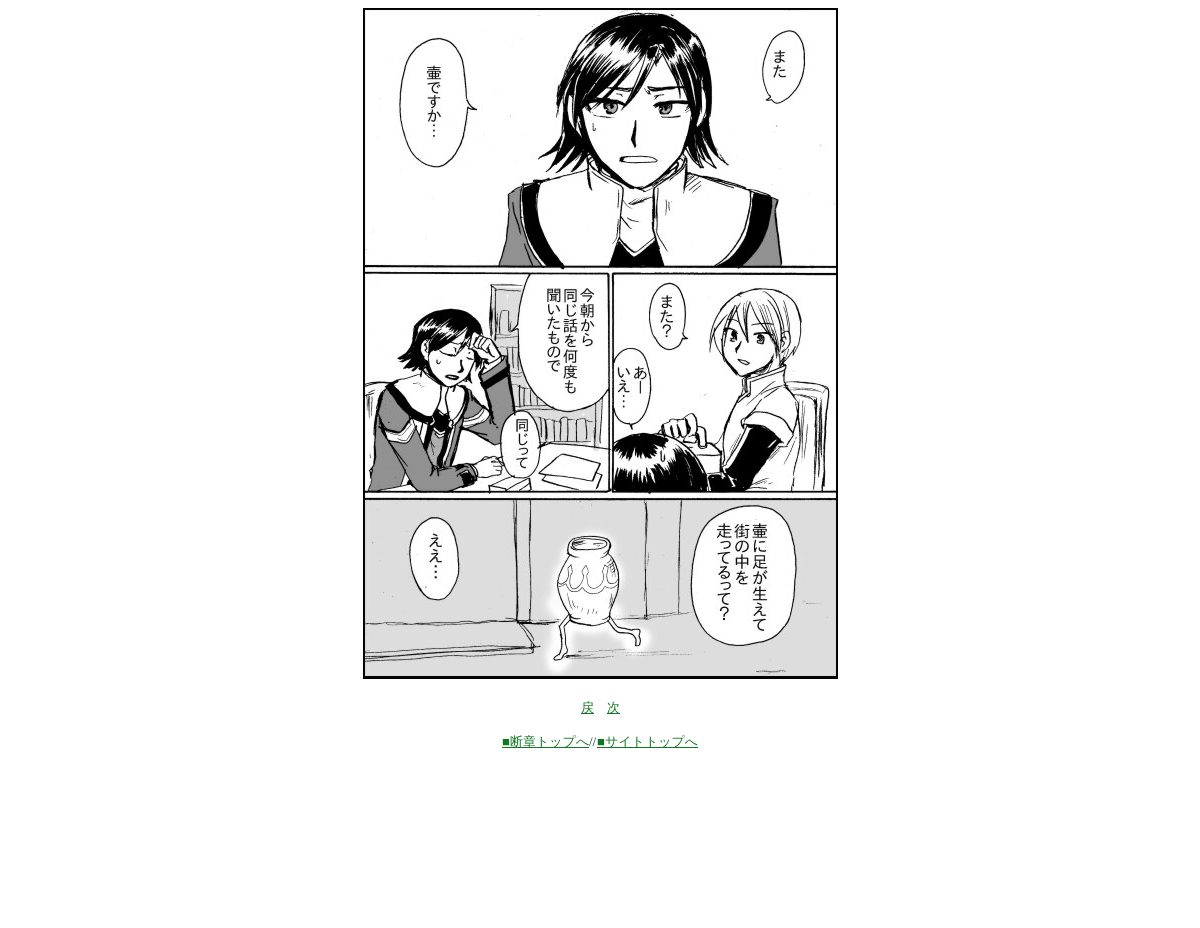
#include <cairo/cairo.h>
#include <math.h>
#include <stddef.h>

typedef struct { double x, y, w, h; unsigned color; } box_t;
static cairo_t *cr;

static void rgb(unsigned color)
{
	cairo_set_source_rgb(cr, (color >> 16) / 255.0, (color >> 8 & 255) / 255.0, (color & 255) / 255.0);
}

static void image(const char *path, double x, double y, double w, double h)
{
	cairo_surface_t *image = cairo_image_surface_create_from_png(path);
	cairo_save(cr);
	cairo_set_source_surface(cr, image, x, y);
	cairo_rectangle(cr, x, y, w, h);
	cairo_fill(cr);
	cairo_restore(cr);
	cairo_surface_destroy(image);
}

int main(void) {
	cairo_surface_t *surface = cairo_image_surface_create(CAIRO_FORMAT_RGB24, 1200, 928);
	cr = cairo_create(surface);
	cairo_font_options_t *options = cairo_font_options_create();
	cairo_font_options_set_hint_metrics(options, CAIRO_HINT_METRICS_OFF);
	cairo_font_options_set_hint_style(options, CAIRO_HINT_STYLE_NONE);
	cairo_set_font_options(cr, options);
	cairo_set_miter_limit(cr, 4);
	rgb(0xffffff);
	cairo_paint(cr);
	image("img/1.png", 363, 8, 475, 671);
	{
		static const box_t items[] = {
			{581, 713, 13, 1, 0x117722},
			{607, 713, 13, 1, 0x117722},
			{502, 747, 87, 1, 0x117722},
			{597, 747, 101, 1, 0x117722},
		};
		for (size_t i = 0; i < sizeof items / sizeof *items; i++) {
			rgb(items[i].color);
			cairo_rectangle(cr, items[i].x, items[i].y, items[i].w, items[i].h);
			cairo_fill(cr);
		}
	}
	cairo_select_font_face(cr, "WenQuanYi Zen Hei Medium", CAIRO_FONT_SLANT_NORMAL, CAIRO_FONT_WEIGHT_NORMAL);
	cairo_set_font_size(cr, 13);
	cairo_move_to(cr, 581, 712);
	cairo_show_text(cr, "戻");
	cairo_move_to(cr, 607, 712);
	cairo_show_text(cr, "次");
	cairo_select_font_face(cr, "Liberation Serif", CAIRO_FONT_SLANT_NORMAL, CAIRO_FONT_WEIGHT_NORMAL);
	cairo_move_to(cr, 502, 746);
	cairo_show_text(cr, "■");
	cairo_select_font_face(cr, "WenQuanYi Zen Hei Medium", CAIRO_FONT_SLANT_NORMAL, CAIRO_FONT_WEIGHT_NORMAL);
	cairo_move_to(cr, 510, 746);
	cairo_show_text(cr, "断章トップへ");
	cairo_select_font_face(cr, "Liberation Serif", CAIRO_FONT_SLANT_NORMAL, CAIRO_FONT_WEIGHT_NORMAL);
	rgb(0x004433);
	cairo_move_to(cr, 589, 746);
	cairo_show_text(cr, "//");
	rgb(0x117722);
	cairo_move_to(cr, 597, 746);
	cairo_show_text(cr, "■");
	cairo_select_font_face(cr, "WenQuanYi Zen Hei Medium", CAIRO_FONT_SLANT_NORMAL, CAIRO_FONT_WEIGHT_NORMAL);
	cairo_move_to(cr, 605, 746);
	cairo_show_text(cr, "サイトトップへ");
	cairo_surface_write_to_png(surface, "page.png");
	cairo_font_options_destroy(options);
	cairo_destroy(cr);
	cairo_surface_destroy(surface);
	return 0;
}
